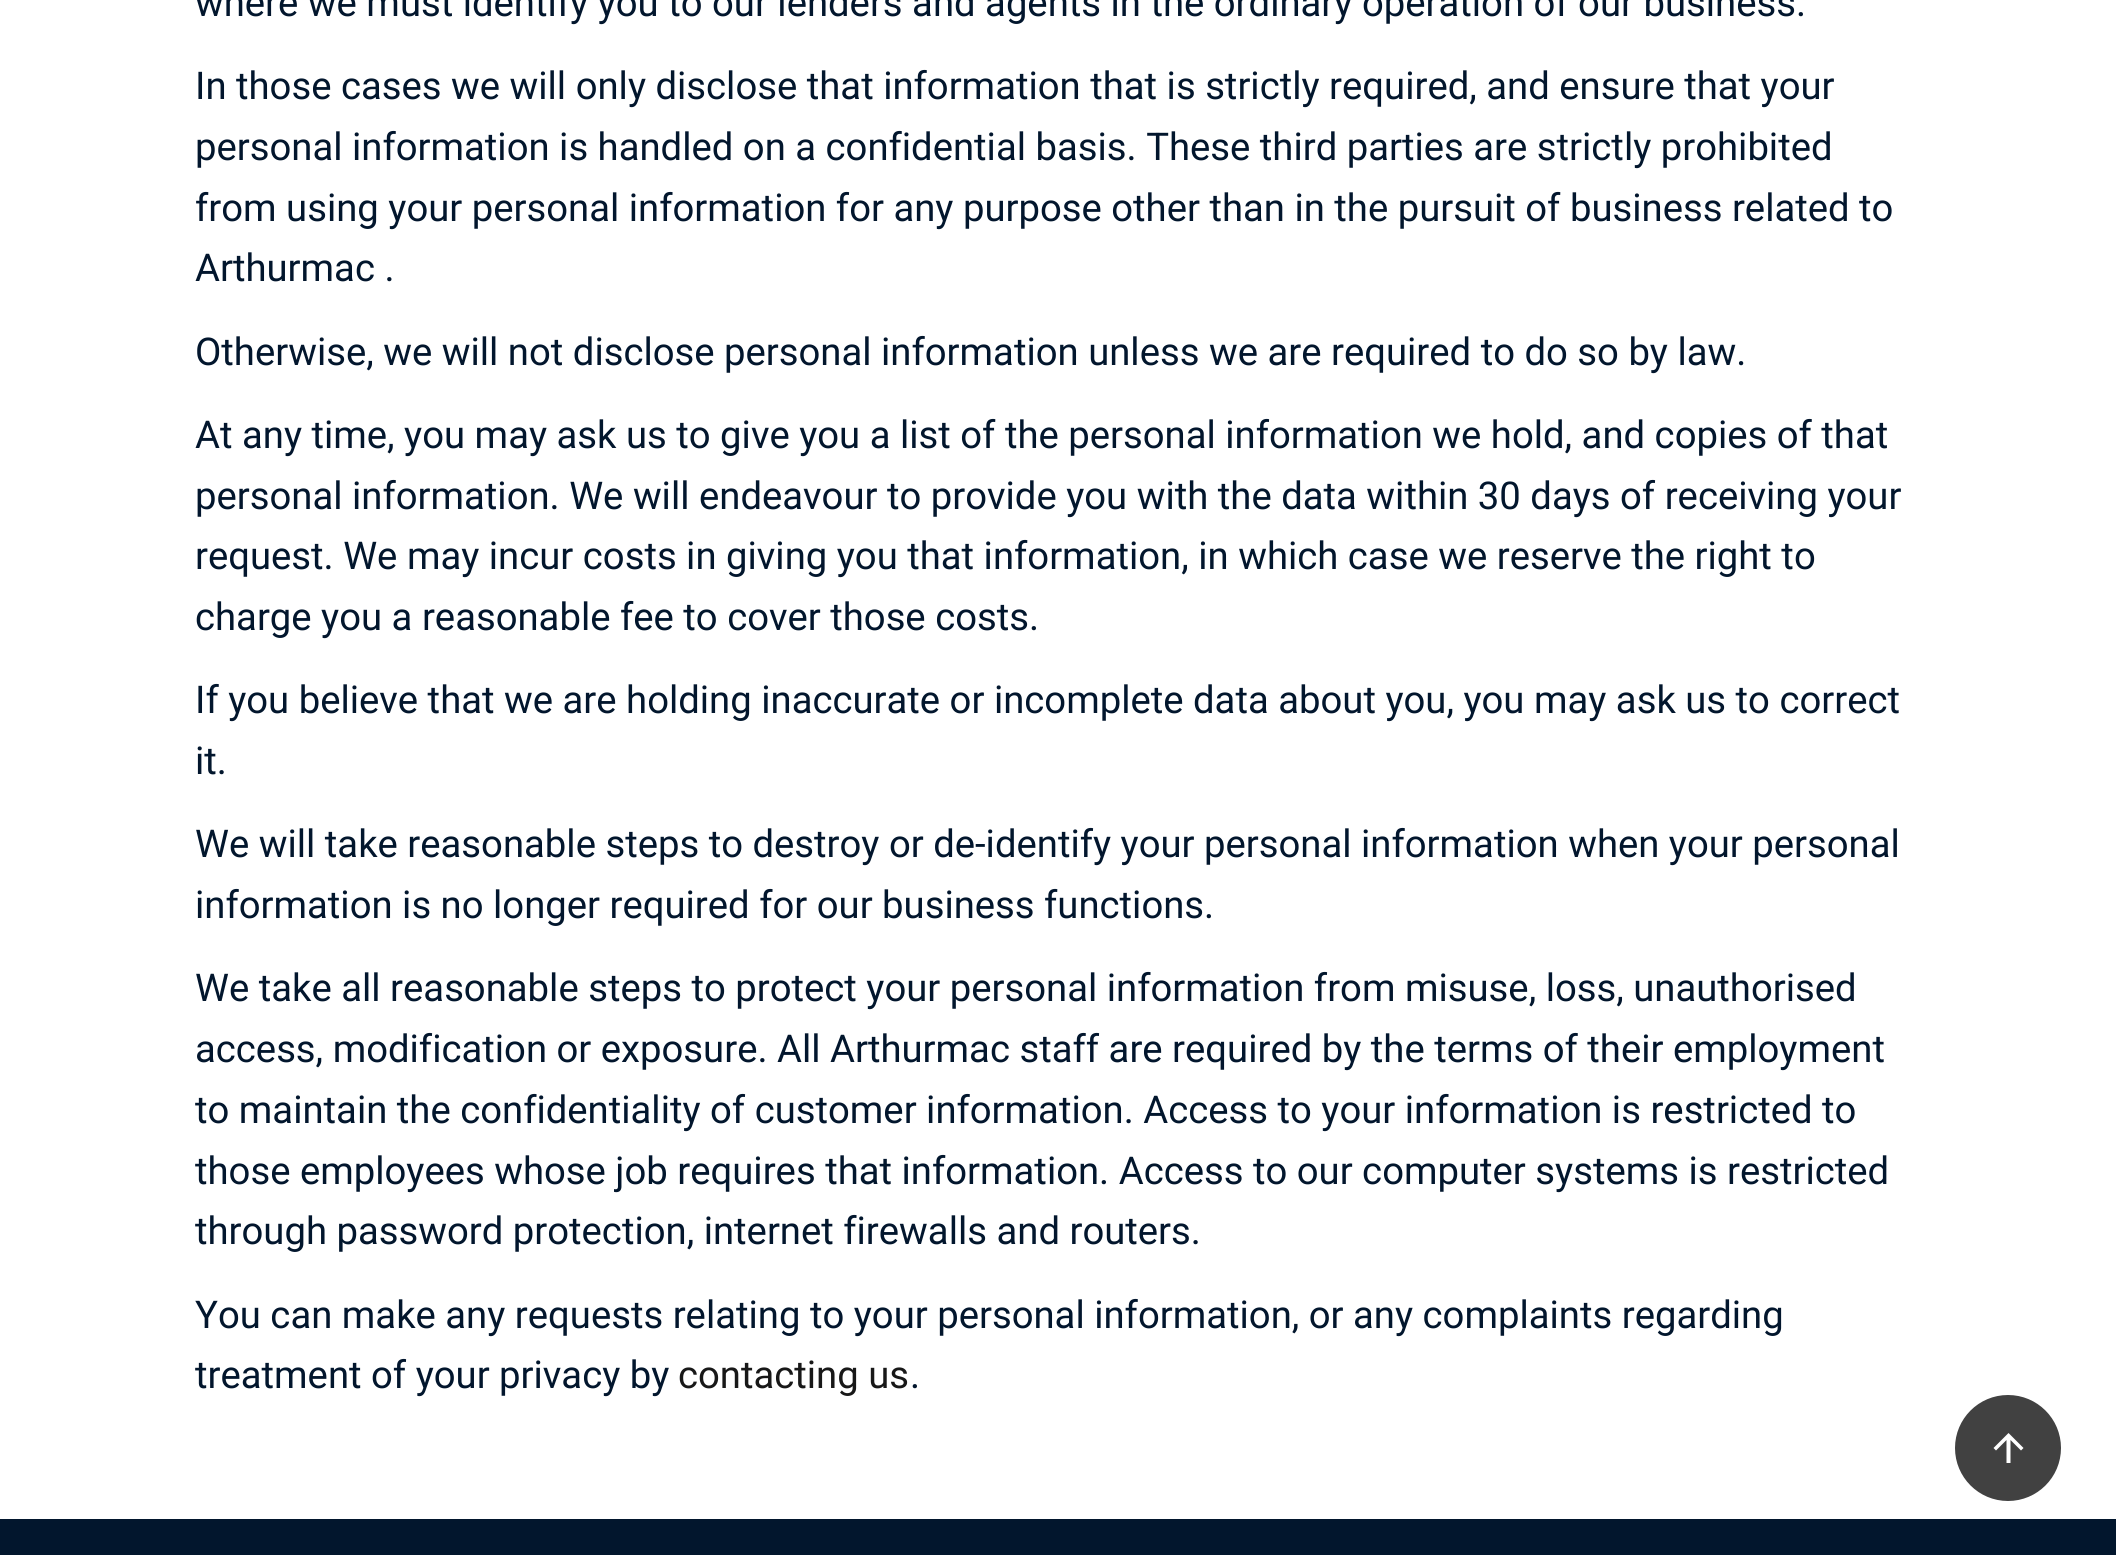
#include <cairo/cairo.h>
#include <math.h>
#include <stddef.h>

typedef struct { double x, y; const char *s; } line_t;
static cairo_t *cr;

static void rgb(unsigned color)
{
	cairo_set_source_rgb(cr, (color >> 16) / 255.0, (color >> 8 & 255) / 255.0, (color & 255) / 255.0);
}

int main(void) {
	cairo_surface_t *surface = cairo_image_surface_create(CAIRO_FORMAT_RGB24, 2116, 1555);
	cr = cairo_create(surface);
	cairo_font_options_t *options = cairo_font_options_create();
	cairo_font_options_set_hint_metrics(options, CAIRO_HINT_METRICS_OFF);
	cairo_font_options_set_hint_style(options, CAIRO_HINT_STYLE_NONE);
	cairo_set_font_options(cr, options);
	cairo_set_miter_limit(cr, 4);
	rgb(0xffffff);
	cairo_paint(cr);
	rgb(0x414141);
	cairo_arc(cr, 2008, 1448, 52, 0, 2 * M_PI);
	cairo_fill_preserve(cr);
	cairo_stroke(cr);
	rgb(0xffffff);
	cairo_new_path(cr);
	cairo_move_to(cr, 2010.5, 1463);
	cairo_line_to(cr, 2006.5, 1463);
	cairo_line_to(cr, 2006.5, 1440);
	cairo_line_to(cr, 1996, 1450.5);
	cairo_line_to(cr, 1993.5, 1448);
	cairo_line_to(cr, 2008.5, 1433);
	cairo_line_to(cr, 2023.5, 1448);
	cairo_line_to(cr, 2021, 1450.5);
	cairo_line_to(cr, 2010.5, 1440);
	cairo_close_path(cr);
	cairo_fill(cr);
	rgb(0x02162d);
	cairo_rectangle(cr, 0, 1519, 2116, 36);
	cairo_fill(cr);
	cairo_select_font_face(cr, "Roboto", CAIRO_FONT_SLANT_NORMAL, CAIRO_FONT_WEIGHT_NORMAL);
	cairo_set_font_size(cr, 38.25);
	{
		static const line_t items[] = {
			{195, 16, "where we must identify you to our lenders and agents in the ordinary operation of our business."},
			{195, 99, "In those cases we will only disclose that information that is strictly required, and ensure that your"},
			{195, 160, "personal information is handled on a confidential basis. These third parties are strictly prohibited"},
			{195, 221, "from using your personal information for any purpose other than in the pursuit of business related to"},
			{195, 281, "Arthurmac ."},
			{195, 365, "Otherwise, we will not disclose personal information unless we are required to do so by law."},
			{195, 448, "At any time, you may ask us to give you a list of the personal information we hold, and copies of that"},
			{195, 509, "personal information. We will endeavour to provide you with the data within 30 days of receiving your"},
			{195, 569, "request. We may incur costs in giving you that information, in which case we reserve the right to"},
			{195, 630, "charge you a reasonable fee to cover those costs."},
			{195, 713, "If you believe that we are holding inaccurate or incomplete data about you, you may ask us to correct"},
			{195, 774, "it."},
			{195, 857, "We will take reasonable steps to destroy or de-identify your personal information when your personal"},
			{195, 918, "information is no longer required for our business functions."},
			{195, 1001, "We take all reasonable steps to protect your personal information from misuse, loss, unauthorised"},
			{195, 1062, "access, modification or exposure. All Arthurmac staff are required by the terms of their employment"},
			{195, 1123, "to maintain the confidentiality of customer information. Access to your information is restricted to"},
			{195, 1184, "those employees whose job requires that information. Access to our computer systems is restricted"},
			{195, 1244, "through password protection, internet firewalls and routers."},
			{195, 1328, "You can make any requests relating to your personal information, or any complaints regarding"},
			{195, 1388, "treatment of your privacy by"},
		};
		for (size_t i = 0; i < sizeof items / sizeof *items; i++) {
			cairo_move_to(cr, items[i].x, items[i].y);
			cairo_show_text(cr, items[i].s);
		}
	}
	rgb(0x181818);
	cairo_move_to(cr, 678, 1388);
	cairo_show_text(cr, "contacting us");
	rgb(0x02162d);
	cairo_move_to(cr, 910, 1388);
	cairo_show_text(cr, ".");
	cairo_surface_write_to_png(surface, "page.png");
	cairo_font_options_destroy(options);
	cairo_destroy(cr);
	cairo_surface_destroy(surface);
	return 0;
}
